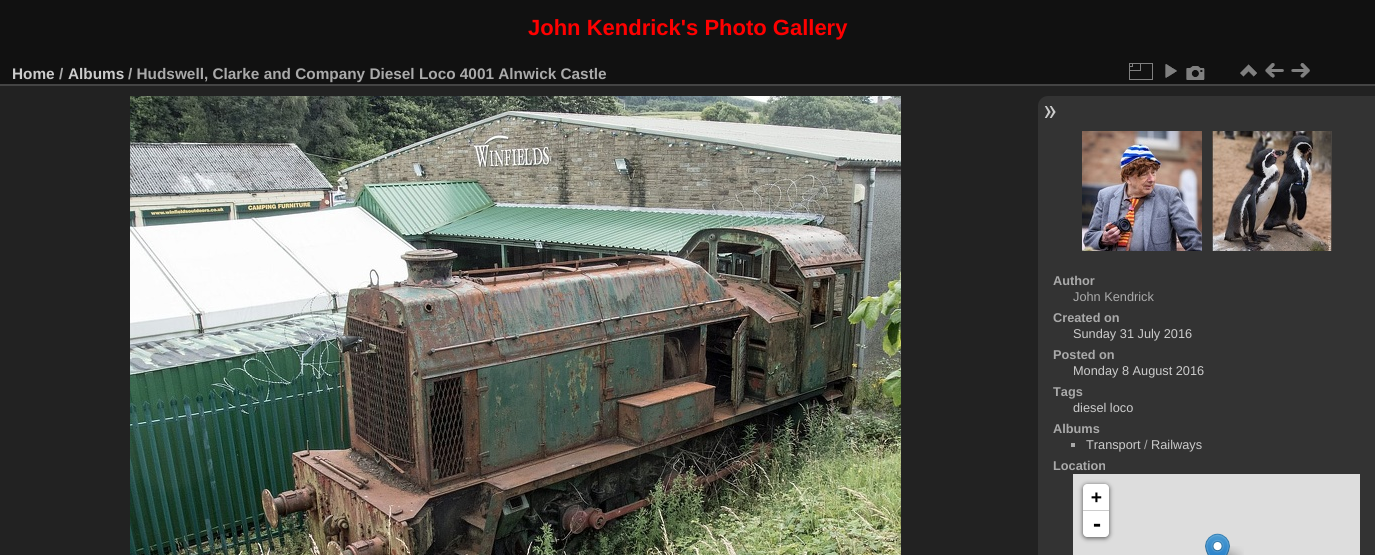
#include <cairo/cairo.h>
#include <math.h>
#include <stddef.h>

static cairo_t *cr;

static void rgb(unsigned color)
{
	cairo_set_source_rgb(cr, (color >> 16) / 255.0, (color >> 8 & 255) / 255.0, (color & 255) / 255.0);
}

static void rrect(double x, double y, double w, double h, double r)
{
	cairo_new_sub_path(cr);
	cairo_arc(cr, x + w - r, y + h - r, r, 0, M_PI / 2);
	cairo_arc(cr, x + r, y + h - r, r, M_PI / 2, M_PI);
	cairo_arc(cr, x + r, y + r, r, M_PI, 1.5 * M_PI);
	cairo_arc(cr, x + w - r, y + r, r, 1.5 * M_PI, 2 * M_PI);
	cairo_close_path(cr);
}

static void soft_shadow(double x, double y, double w, double h, double r, double blur, double alpha)
{
	cairo_push_group_with_content(cr, CAIRO_CONTENT_ALPHA);
	cairo_set_operator(cr, CAIRO_OPERATOR_SOURCE);
	for (int i = 15; i >= -15 && fmin(w, h) + blur * i / 3 > 0; i -= 2) {
		double e = blur * i / 6;
		cairo_set_source_rgba(cr, 0, 0, 0, alpha * erfc((i - 1) / 8.5) / 2);
		rrect(x - e, y - e, w + 2 * e, h + 2 * e, fmax(0, fmin(r + e + blur * .6, fmin(w, h) / 2 + e)));
		cairo_fill(cr);
	}
	cairo_pattern_t *soft = cairo_pop_group(cr);
	cairo_mask(cr, soft);
	cairo_pattern_destroy(soft);
}

static void image(const char *path, double x, double y, double w, double h)
{
	cairo_surface_t *image = cairo_image_surface_create_from_png(path);
	cairo_save(cr);
	cairo_set_source_surface(cr, image, x, y);
	cairo_rectangle(cr, x, y, w, h);
	cairo_fill(cr);
	cairo_restore(cr);
	cairo_surface_destroy(image);
}

int main(void) {
	cairo_surface_t *surface = cairo_image_surface_create(CAIRO_FORMAT_RGB24, 1375, 555);
	cr = cairo_create(surface);
	cairo_font_options_t *options = cairo_font_options_create();
	cairo_font_options_set_hint_metrics(options, CAIRO_HINT_METRICS_OFF);
	cairo_font_options_set_hint_style(options, CAIRO_HINT_STYLE_NONE);
	cairo_set_font_options(cr, options);
	cairo_set_miter_limit(cr, 4);
	rgb(0x111111);
	cairo_paint(cr);
	rgb(0x222222);
	cairo_rectangle(cr, 0, 86, 1375, 469);
	cairo_fill(cr);
	rgb(0x444444);
	cairo_rectangle(cr, 0, 84, 1375, 2);
	cairo_fill(cr);
	image("img/1.png", 1129, 63, 24, 17);
	image("img/2.png", 1165, 64, 12, 14);
	image("img/3.png", 1186, 66, 19, 14);
	image("img/4.png", 1240, 64, 17, 13);
	image("img/5.png", 1265, 63, 19, 15);
	image("img/6.png", 1291, 63, 19, 15);
	image("img/7.png", 130, 96, 771, 459);
	rgb(0x333333);
	cairo_new_path(cr);
	cairo_move_to(cr, 1048, 96);
	cairo_line_to(cr, 1375, 96);
	cairo_line_to(cr, 1375, 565);
	cairo_line_to(cr, 1048, 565);
	cairo_curve_to(cr, 1042.5, 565, 1038, 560.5, 1038, 555);
	cairo_line_to(cr, 1038, 106);
	cairo_curve_to(cr, 1038, 100.5, 1042.5, 96, 1048, 96);
	cairo_close_path(cr);
	cairo_fill(cr);
	image("img/8.png", 1044, 106, 12, 12);
	image("img/9.png", 1082, 131, 120, 120);
	image("img/10.png", 1212, 131, 120, 120);
	rgb(0xaaaaaa);
	cairo_rectangle(cr, 1071, 443, 4, 4);
	cairo_fill(cr);
	rgb(0xdddddd);
	cairo_rectangle(cr, 1073, 474, 287, 81);
	cairo_fill(cr);
	rgb(0x000000);
	soft_shadow(1083, 485, 26, 53, 4, 2.5, 0.65);
	rgb(0xffffff);
	cairo_new_path(cr);
	cairo_move_to(cr, 1087, 484);
	cairo_line_to(cr, 1105, 484);
	cairo_curve_to(cr, 1107, 484, 1109, 486, 1109, 488);
	cairo_line_to(cr, 1109, 511);
	cairo_line_to(cr, 1083, 511);
	cairo_line_to(cr, 1083, 488);
	cairo_curve_to(cr, 1083, 486, 1085, 484, 1087, 484);
	cairo_close_path(cr);
	cairo_fill(cr);
	rgb(0xcccccc);
	cairo_rectangle(cr, 1083, 510, 26, 1);
	cairo_fill(cr);
	rgb(0xffffff);
	cairo_new_path(cr);
	cairo_move_to(cr, 1083, 511);
	cairo_line_to(cr, 1109, 511);
	cairo_line_to(cr, 1109, 533);
	cairo_curve_to(cr, 1109, 535, 1107, 537, 1105, 537);
	cairo_line_to(cr, 1087, 537);
	cairo_curve_to(cr, 1085, 537, 1083, 535, 1083, 533);
	cairo_close_path(cr);
	cairo_fill(cr);
	image("img/12.png", 1226, 546, 18, 9);
	image("img/11.png", 1205, 533, 25, 22);
	cairo_select_font_face(cr, "Liberation Sans", CAIRO_FONT_SLANT_NORMAL, CAIRO_FONT_WEIGHT_BOLD);
	cairo_set_font_size(cr, 22);
	rgb(0xff0000);
	cairo_move_to(cr, 528, 35);
	cairo_show_text(cr, "John Kendrick's Photo Gallery");
	cairo_set_font_size(cr, 15.35);
	rgb(0xcccccc);
	cairo_move_to(cr, 12, 79);
	cairo_show_text(cr, "Home");
	rgb(0xaaaaaa);
	cairo_move_to(cr, 59, 79);
	cairo_show_text(cr, "/");
	rgb(0xcccccc);
	cairo_move_to(cr, 68, 79);
	cairo_show_text(cr, "Albums");
	rgb(0xaaaaaa);
	cairo_move_to(cr, 128, 79);
	cairo_show_text(cr, "/ Hudswell, Clarke and Company Diesel Loco 4001 Alnwick Castle");
	cairo_set_font_size(cr, 12.75);
	cairo_move_to(cr, 1053, 285);
	cairo_show_text(cr, "Author");
	cairo_select_font_face(cr, "Liberation Sans", CAIRO_FONT_SLANT_NORMAL, CAIRO_FONT_WEIGHT_NORMAL);
	cairo_move_to(cr, 1073, 301);
	cairo_show_text(cr, "John Kendrick");
	cairo_select_font_face(cr, "Liberation Sans", CAIRO_FONT_SLANT_NORMAL, CAIRO_FONT_WEIGHT_BOLD);
	cairo_move_to(cr, 1053, 322);
	cairo_show_text(cr, "Created on");
	cairo_select_font_face(cr, "Liberation Sans", CAIRO_FONT_SLANT_NORMAL, CAIRO_FONT_WEIGHT_NORMAL);
	rgb(0xcccccc);
	cairo_move_to(cr, 1073, 338);
	cairo_show_text(cr, "Sunday 31 July 2016");
	cairo_select_font_face(cr, "Liberation Sans", CAIRO_FONT_SLANT_NORMAL, CAIRO_FONT_WEIGHT_BOLD);
	rgb(0xaaaaaa);
	cairo_move_to(cr, 1053, 359);
	cairo_show_text(cr, "Posted on");
	cairo_select_font_face(cr, "Liberation Sans", CAIRO_FONT_SLANT_NORMAL, CAIRO_FONT_WEIGHT_NORMAL);
	rgb(0xcccccc);
	cairo_move_to(cr, 1073, 375);
	cairo_show_text(cr, "Monday 8 August 2016");
	cairo_select_font_face(cr, "Liberation Sans", CAIRO_FONT_SLANT_NORMAL, CAIRO_FONT_WEIGHT_BOLD);
	rgb(0xaaaaaa);
	cairo_move_to(cr, 1053, 396);
	cairo_show_text(cr, "Tags");
	cairo_select_font_face(cr, "Liberation Sans", CAIRO_FONT_SLANT_NORMAL, CAIRO_FONT_WEIGHT_NORMAL);
	rgb(0xcccccc);
	cairo_move_to(cr, 1073, 412);
	cairo_show_text(cr, "diesel loco");
	cairo_select_font_face(cr, "Liberation Sans", CAIRO_FONT_SLANT_NORMAL, CAIRO_FONT_WEIGHT_BOLD);
	rgb(0xaaaaaa);
	cairo_move_to(cr, 1053, 433);
	cairo_show_text(cr, "Albums");
	cairo_select_font_face(cr, "Liberation Sans", CAIRO_FONT_SLANT_NORMAL, CAIRO_FONT_WEIGHT_NORMAL);
	rgb(0xcccccc);
	cairo_move_to(cr, 1086, 449);
	cairo_show_text(cr, "Transport");
	rgb(0xaaaaaa);
	cairo_move_to(cr, 1144, 449);
	cairo_show_text(cr, "/");
	rgb(0xcccccc);
	cairo_move_to(cr, 1151, 449);
	cairo_show_text(cr, "Railways");
	cairo_select_font_face(cr, "Liberation Sans", CAIRO_FONT_SLANT_NORMAL, CAIRO_FONT_WEIGHT_BOLD);
	rgb(0xaaaaaa);
	cairo_move_to(cr, 1053, 470);
	cairo_show_text(cr, "Location");
	cairo_select_font_face(cr, "DejaVu Sans Mono", CAIRO_FONT_SLANT_NORMAL, CAIRO_FONT_WEIGHT_BOLD);
	cairo_set_font_size(cr, 18);
	rgb(0x000000);
	cairo_move_to(cr, 1091, 503);
	cairo_show_text(cr, "+");
	cairo_set_font_size(cr, 20);
	cairo_move_to(cr, 1091, 531);
	cairo_show_text(cr, "-");
	cairo_surface_write_to_png(surface, "page.png");
	cairo_font_options_destroy(options);
	cairo_destroy(cr);
	cairo_surface_destroy(surface);
	return 0;
}
